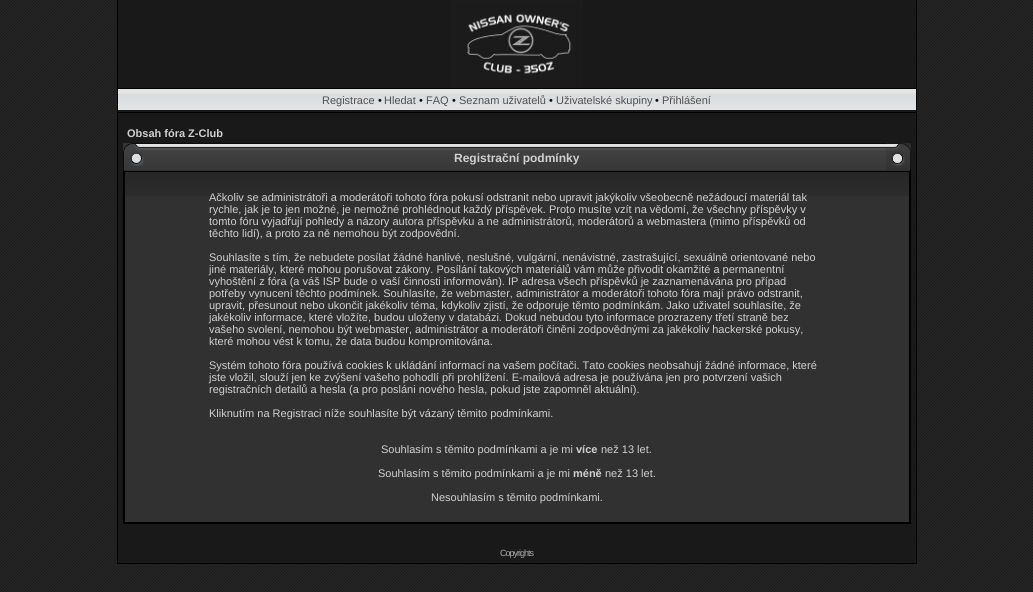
#include <cairo/cairo.h>
#include <math.h>
#include <stddef.h>

typedef struct { double x, y; const char *s; } line_t;
typedef struct { double x, y, w, h; unsigned color; } box_t;
static cairo_t *cr;

static void rgb(unsigned color)
{
	cairo_set_source_rgb(cr, (color >> 16) / 255.0, (color >> 8 & 255) / 255.0, (color & 255) / 255.0);
}

static void tracked(double x, double y, const char *s, double letter, double word)
{
	cairo_move_to(cr, x, y);
	while (*s) {
		char ch[5] = {0};
		int n = 0;
		do ch[n++] = *s++; while ((*s & 0xC0) == 0x80);
		cairo_show_text(cr, ch);
		cairo_rel_move_to(cr, letter + word * (*ch == ' '), 0);
	}
}

static void image(const char *path, double x, double y, double w, double h)
{
	cairo_surface_t *image = cairo_image_surface_create_from_png(path);
	cairo_save(cr);
	cairo_set_source_surface(cr, image, x, y);
	cairo_rectangle(cr, x, y, w, h);
	cairo_fill(cr);
	cairo_restore(cr);
	cairo_surface_destroy(image);
}

int main(void) {
	cairo_surface_t *surface = cairo_image_surface_create(CAIRO_FORMAT_RGB24, 1033, 592);
	cr = cairo_create(surface);
	cairo_font_options_t *options = cairo_font_options_create();
	cairo_font_options_set_hint_metrics(options, CAIRO_HINT_METRICS_OFF);
	cairo_font_options_set_hint_style(options, CAIRO_HINT_STYLE_NONE);
	cairo_set_font_options(cr, options);
	cairo_set_miter_limit(cr, 4);
	rgb(0xffffff);
	cairo_paint(cr);
	image("img/1.png", 0, 564, 1033, 28);
	image("img/2.png", 0, 0, 1033, 564);
	{
		static const box_t items[] = {
			{916, 0, 1, 564, 0x000000},
			{117, 563, 800, 1, 0x000000},
			{117, 0, 1, 564, 0x000000},
			{118, 0, 798, 563, 0x191919},
		};
		for (size_t i = 0; i < sizeof items / sizeof *items; i++) {
			rgb(items[i].color);
			cairo_rectangle(cr, items[i].x, items[i].y, items[i].w, items[i].h);
			cairo_fill(cr);
		}
	}
	image("img/3.png", 451, 0, 132, 88);
	rgb(0x000000);
	cairo_rectangle(cr, 118, 88, 798, 1);
	cairo_fill(cr);
	cairo_rectangle(cr, 118, 112, 798, 1);
	cairo_fill(cr);
	image("img/4.png", 118, 89, 798, 21);
	rgb(0x313131);
	cairo_rectangle(cr, 124, 170, 786, 1);
	cairo_fill(cr);
	cairo_rectangle(cr, 123.5, 143.5, 787, 380);
	rgb(0x000000);
	cairo_set_line_width(cr, 1);
	cairo_stroke(cr);
	image("img/5.png", 144, 143, 4, 27);
	image("img/6.png", 123, 143, 21, 27);
	image("img/7.png", 148, 143, 738, 27);
	image("img/8.png", 886, 143, 25, 27);
	rgb(0x313131);
	cairo_rectangle(cr, 125, 196, 784, 326);
	cairo_fill(cr);
	image("img/9.png", 125, 172, 784, 24);
	cairo_rectangle(cr, 124.5, 171.5, 785, 351);
	rgb(0x000000);
	cairo_stroke(cr);
	cairo_select_font_face(cr, "Liberation Sans", CAIRO_FONT_SLANT_NORMAL, CAIRO_FONT_WEIGHT_NORMAL);
	cairo_set_font_size(cr, 11);
	rgb(0x505050);
	cairo_move_to(cr, 322, 104);
	cairo_show_text(cr, "Registrace");
	rgb(0x101010);
	cairo_move_to(cr, 378, 104);
	cairo_show_text(cr, "•");
	rgb(0x505050);
	cairo_move_to(cr, 384, 104);
	cairo_show_text(cr, "Hledat");
	rgb(0x101010);
	cairo_move_to(cr, 419, 104);
	cairo_show_text(cr, "•");
	rgb(0x505050);
	cairo_move_to(cr, 426, 104);
	cairo_show_text(cr, "FAQ");
	rgb(0x101010);
	cairo_move_to(cr, 452, 104);
	cairo_show_text(cr, "•");
	rgb(0x505050);
	cairo_move_to(cr, 459, 104);
	cairo_show_text(cr, "Seznam uživatelů");
	rgb(0x101010);
	cairo_move_to(cr, 549, 104);
	cairo_show_text(cr, "•");
	rgb(0x505050);
	cairo_move_to(cr, 556, 104);
	cairo_show_text(cr, "Uživatelské skupiny");
	rgb(0x101010);
	cairo_move_to(cr, 655, 104);
	cairo_show_text(cr, "•");
	rgb(0x505050);
	cairo_move_to(cr, 662, 104);
	cairo_show_text(cr, "Přihlášení");
	cairo_select_font_face(cr, "Liberation Sans", CAIRO_FONT_SLANT_NORMAL, CAIRO_FONT_WEIGHT_BOLD);
	rgb(0xd0d0d0);
	cairo_move_to(cr, 127, 137);
	cairo_show_text(cr, "Obsah fóra Z-Club");
	cairo_set_font_size(cr, 12);
	cairo_move_to(cr, 454, 162);
	cairo_show_text(cr, "Registrační podmínky");
	cairo_select_font_face(cr, "Liberation Sans", CAIRO_FONT_SLANT_NORMAL, CAIRO_FONT_WEIGHT_NORMAL);
	cairo_set_font_size(cr, 11);
	{
		static const line_t items[] = {
			{209, 201, "Ačkoliv se administrátoři a moderátoři tohoto fóra pokusí odstranit nebo upravit jakýkoliv všeobecně nežádoucí materiál tak"},
			{209, 213, "rychle, jak je to jen možné, je nemožné prohlédnout každý příspěvek. Proto musíte vzít na vědomí, že všechny příspěvky v"},
			{209, 225, "tomto fóru vyjadřují pohledy a názory autora příspěvku a ne administrátorů, moderátorů a webmastera (mimo příspěvků od"},
			{209, 237, "těchto lidí), a proto za ně nemohou být zodpovědní."},
			{209, 261, "Souhlasíte s tím, že nebudete posílat žádné hanlivé, neslušné, vulgární, nenávistné, zastrašující, sexuálně orientované nebo"},
			{209, 273, "jiné materiály, které mohou porušovat zákony. Posílání takových materiálů vám může přivodit okamžité a permanentní"},
			{209, 285, "vyhoštění z fóra (a váš ISP bude o vaší činnosti informován). IP adresa všech příspěvků je zaznamenávána pro případ"},
			{209, 297, "potřeby vynucení těchto podmínek. Souhlasíte, že webmaster, administrátor a moderátoři tohoto fóra mají právo odstranit,"},
			{209, 309, "upravit, přesunout nebo ukončit jakékoliv téma, kdykoliv zjistí, že odporuje těmto podmínkám. Jako uživatel souhlasíte, že"},
			{209, 321, "jakékoliv informace, které vložíte, budou uloženy v databázi. Dokud nebudou tyto informace prozrazeny třetí straně bez"},
			{209, 333, "vašeho svolení, nemohou být webmaster, administrátor a moderátoři činěni zodpovědnými za jakékoliv hackerské pokusy,"},
			{209, 345, "které mohou vést k tomu, že data budou kompromitována."},
			{209, 369, "Systém tohoto fóra používá cookies k ukládání informací na vašem počítači. Tato cookies neobsahují žádné informace, které"},
			{209, 381, "jste vložil, slouží jen ke zvýšení vašeho pohodlí při prohlížení. E-mailová adresa je používána jen pro potvrzení vašich"},
			{209, 393, "registračních detailů a hesla (a pro posláni nového hesla, pokud jste zapomněl aktuální)."},
			{209, 417, "Kliknutím na Registraci níže souhlasíte být vázaný těmito podmínkami."},
			{381, 453, "Souhlasím s těmito podmínkami a je mi"},
		};
		for (size_t i = 0; i < sizeof items / sizeof *items; i++) {
			cairo_move_to(cr, items[i].x, items[i].y);
			cairo_show_text(cr, items[i].s);
		}
	}
	cairo_select_font_face(cr, "Liberation Sans", CAIRO_FONT_SLANT_NORMAL, CAIRO_FONT_WEIGHT_BOLD);
	cairo_move_to(cr, 576, 453);
	cairo_show_text(cr, "více");
	cairo_select_font_face(cr, "Liberation Sans", CAIRO_FONT_SLANT_NORMAL, CAIRO_FONT_WEIGHT_NORMAL);
	cairo_move_to(cr, 601, 453);
	cairo_show_text(cr, "než 13 let.");
	cairo_move_to(cr, 378, 477);
	cairo_show_text(cr, "Souhlasím s těmito podmínkami a je mi");
	cairo_select_font_face(cr, "Liberation Sans", CAIRO_FONT_SLANT_NORMAL, CAIRO_FONT_WEIGHT_BOLD);
	cairo_move_to(cr, 573, 477);
	cairo_show_text(cr, "méně");
	cairo_select_font_face(cr, "Liberation Sans", CAIRO_FONT_SLANT_NORMAL, CAIRO_FONT_WEIGHT_NORMAL);
	cairo_move_to(cr, 605, 477);
	cairo_show_text(cr, "než 13 let.");
	cairo_move_to(cr, 431, 501);
	cairo_show_text(cr, "Nesouhlasím s těmito podmínkami.");
	cairo_set_font_size(cr, 9);
	rgb(0xaaaaaa);
	tracked(500, 556, "Copyrights", -1, 0);
	cairo_surface_write_to_png(surface, "page.png");
	cairo_font_options_destroy(options);
	cairo_destroy(cr);
	cairo_surface_destroy(surface);
	return 0;
}
